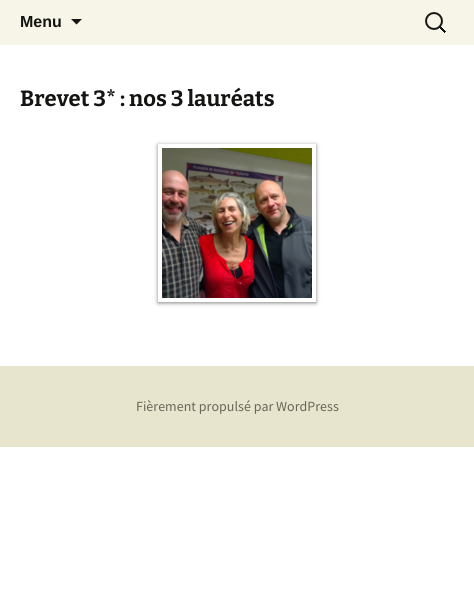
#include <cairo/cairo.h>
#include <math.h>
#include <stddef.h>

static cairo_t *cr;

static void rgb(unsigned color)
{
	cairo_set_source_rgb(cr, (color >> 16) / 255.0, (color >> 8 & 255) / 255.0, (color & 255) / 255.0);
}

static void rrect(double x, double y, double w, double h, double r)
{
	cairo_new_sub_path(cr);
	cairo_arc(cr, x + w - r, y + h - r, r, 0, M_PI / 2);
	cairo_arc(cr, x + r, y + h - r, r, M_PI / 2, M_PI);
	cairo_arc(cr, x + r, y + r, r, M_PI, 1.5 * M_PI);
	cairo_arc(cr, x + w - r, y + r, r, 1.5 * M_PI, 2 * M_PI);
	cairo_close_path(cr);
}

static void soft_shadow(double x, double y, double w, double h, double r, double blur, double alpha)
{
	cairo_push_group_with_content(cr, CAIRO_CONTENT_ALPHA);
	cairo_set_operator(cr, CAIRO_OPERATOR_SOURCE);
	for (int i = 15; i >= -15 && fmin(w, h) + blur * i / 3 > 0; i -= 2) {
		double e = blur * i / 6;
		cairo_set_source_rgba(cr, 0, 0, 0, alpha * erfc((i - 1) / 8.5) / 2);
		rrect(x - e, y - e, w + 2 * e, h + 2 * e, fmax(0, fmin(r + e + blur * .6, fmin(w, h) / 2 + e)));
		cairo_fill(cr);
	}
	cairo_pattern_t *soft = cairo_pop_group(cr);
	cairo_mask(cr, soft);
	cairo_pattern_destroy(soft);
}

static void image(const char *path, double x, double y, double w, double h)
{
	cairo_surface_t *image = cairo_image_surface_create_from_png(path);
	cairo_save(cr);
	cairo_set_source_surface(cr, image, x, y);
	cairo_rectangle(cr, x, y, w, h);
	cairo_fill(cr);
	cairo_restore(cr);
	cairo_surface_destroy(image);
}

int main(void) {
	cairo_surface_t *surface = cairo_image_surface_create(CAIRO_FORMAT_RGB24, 474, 598);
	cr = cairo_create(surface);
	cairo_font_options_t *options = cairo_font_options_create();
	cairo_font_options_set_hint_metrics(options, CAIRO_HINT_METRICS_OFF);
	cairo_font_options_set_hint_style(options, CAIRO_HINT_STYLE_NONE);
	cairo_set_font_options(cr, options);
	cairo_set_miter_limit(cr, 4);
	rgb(0xffffff);
	cairo_paint(cr);
	rgb(0xf7f5e7);
	cairo_rectangle(cr, 0, 0, 474, 45);
	cairo_fill(cr);
	rgb(0x141412);
	cairo_new_path(cr);
	cairo_move_to(cr, 71, 19);
	cairo_line_to(cr, 76.5, 24.5);
	cairo_line_to(cr, 82, 19);
	cairo_close_path(cr);
	cairo_fill(cr);
	image("img/1.png", 425, 12, 21, 21);
	cairo_save(cr);
	cairo_set_fill_rule(cr, CAIRO_FILL_RULE_EVEN_ODD);
	cairo_new_path(cr);
	cairo_move_to(cr, 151, 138);
	cairo_line_to(cr, 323, 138);
	cairo_line_to(cr, 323, 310);
	cairo_line_to(cr, 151, 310);
	cairo_close_path(cr);
	cairo_move_to(cr, 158, 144);
	cairo_line_to(cr, 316, 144);
	cairo_line_to(cr, 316, 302);
	cairo_line_to(cr, 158, 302);
	cairo_close_path(cr);
	cairo_clip(cr);
	rgb(0x000000);
	soft_shadow(158, 145, 158, 158, 0, 2, 0.5);
	cairo_restore(cr);
	image("img/2.png", 162, 148, 150, 150);
	rgb(0xe8e5ce);
	cairo_rectangle(cr, 0, 366, 474, 81);
	cairo_fill(cr);
	cairo_select_font_face(cr, "Liberation Sans", CAIRO_FONT_SLANT_NORMAL, CAIRO_FONT_WEIGHT_BOLD);
	cairo_set_font_size(cr, 16);
	rgb(0x141412);
	cairo_move_to(cr, 20, 27);
	cairo_show_text(cr, "Menu");
	cairo_select_font_face(cr, "Bitter Thin", CAIRO_FONT_SLANT_NORMAL, CAIRO_FONT_WEIGHT_NORMAL);
	cairo_set_font_size(cr, 22);
	cairo_move_to(cr, 20, 106);
	cairo_show_text(cr, "Brevet 3* : nos 3 lauréats");
	cairo_select_font_face(cr, "Source Sans Pro", CAIRO_FONT_SLANT_NORMAL, CAIRO_FONT_WEIGHT_NORMAL);
	cairo_set_font_size(cr, 14);
	rgb(0x686758);
	cairo_move_to(cr, 136, 411);
	cairo_show_text(cr, "Fièrement propulsé par WordPress");
	cairo_surface_write_to_png(surface, "page.png");
	cairo_font_options_destroy(options);
	cairo_destroy(cr);
	cairo_surface_destroy(surface);
	return 0;
}
